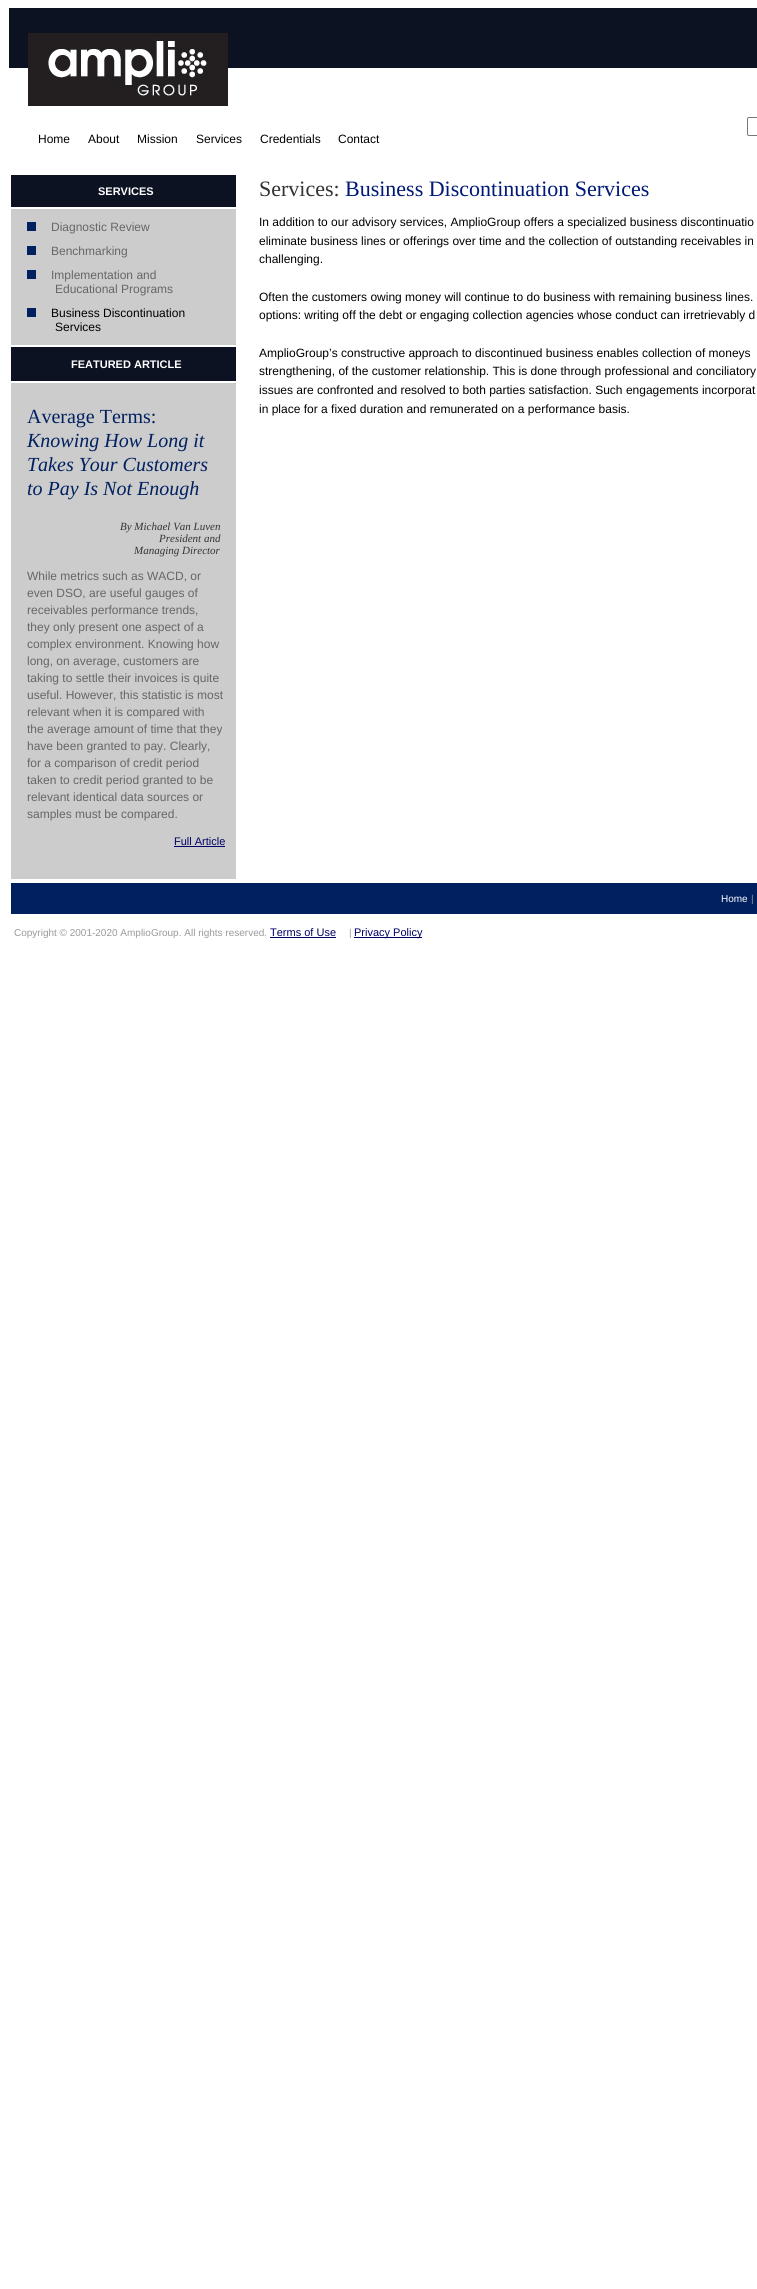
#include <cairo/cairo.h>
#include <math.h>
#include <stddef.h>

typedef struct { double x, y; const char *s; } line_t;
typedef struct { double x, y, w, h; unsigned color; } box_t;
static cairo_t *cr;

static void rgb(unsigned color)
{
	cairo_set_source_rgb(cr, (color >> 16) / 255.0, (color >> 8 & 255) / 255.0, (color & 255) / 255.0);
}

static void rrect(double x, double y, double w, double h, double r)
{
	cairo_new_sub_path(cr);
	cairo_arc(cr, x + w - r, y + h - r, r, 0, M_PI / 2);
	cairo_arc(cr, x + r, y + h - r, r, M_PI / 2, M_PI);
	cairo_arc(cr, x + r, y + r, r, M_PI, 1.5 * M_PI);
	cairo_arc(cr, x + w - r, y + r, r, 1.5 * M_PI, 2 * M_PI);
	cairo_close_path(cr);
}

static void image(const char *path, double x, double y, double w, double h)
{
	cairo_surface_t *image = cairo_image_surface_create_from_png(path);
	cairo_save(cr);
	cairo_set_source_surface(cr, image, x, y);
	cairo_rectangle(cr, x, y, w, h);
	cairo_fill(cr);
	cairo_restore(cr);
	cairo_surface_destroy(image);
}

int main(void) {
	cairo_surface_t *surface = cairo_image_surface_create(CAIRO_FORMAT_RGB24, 757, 2289);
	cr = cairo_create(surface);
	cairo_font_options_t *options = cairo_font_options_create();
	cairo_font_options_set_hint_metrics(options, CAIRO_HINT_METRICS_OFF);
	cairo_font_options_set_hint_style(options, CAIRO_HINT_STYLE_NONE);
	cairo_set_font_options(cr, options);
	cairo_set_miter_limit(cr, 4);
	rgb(0xffffff);
	cairo_paint(cr);
	rgb(0x0d1223);
	cairo_rectangle(cr, 9, 8, 748, 60);
	cairo_fill(cr);
	image("img/1.png", 28, 33, 200, 73);
	rrect(747.5, 117.5, 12, 18, 1.5);
	rgb(0x767676);
	cairo_set_line_width(cr, 1);
	cairo_stroke(cr);
	{
		static const box_t items[] = {
			{11, 175, 225, 32, 0x0d1223},
			{11, 209, 225, 136, 0xcccccc},
			{27, 222, 9, 9, 0x002060},
			{27, 246, 9, 9, 0x002060},
			{27, 270, 9, 9, 0x002060},
			{27, 308, 9, 9, 0x002060},
			{11, 347, 225, 34, 0x0d1223},
			{11, 383, 225, 496, 0xcccccc},
			{174, 846, 51, 1, 0x000066},
			{11, 883, 746, 31, 0x002060},
			{270, 937, 66, 1, 0x000066},
			{354, 937, 68, 1, 0x000066},
		};
		for (size_t i = 0; i < sizeof items / sizeof *items; i++) {
			rgb(items[i].color);
			cairo_rectangle(cr, items[i].x, items[i].y, items[i].w, items[i].h);
			cairo_fill(cr);
		}
	}
	cairo_select_font_face(cr, "Liberation Sans", CAIRO_FONT_SLANT_NORMAL, CAIRO_FONT_WEIGHT_NORMAL);
	cairo_set_font_size(cr, 12);
	rgb(0x000000);
	{
		static const line_t items[] = {
			{38, 143, "Home"},
			{88, 143, "About"},
			{137, 143, "Mission"},
			{196, 143, "Services"},
			{260, 143, "Credentials"},
			{338, 143, "Contact"},
		};
		for (size_t i = 0; i < sizeof items / sizeof *items; i++) {
			cairo_move_to(cr, items[i].x, items[i].y);
			cairo_show_text(cr, items[i].s);
		}
	}
	cairo_select_font_face(cr, "Liberation Sans", CAIRO_FONT_SLANT_NORMAL, CAIRO_FONT_WEIGHT_BOLD);
	cairo_set_font_size(cr, 11);
	rgb(0xffffff);
	cairo_move_to(cr, 98, 195);
	cairo_show_text(cr, "SERVICES");
	cairo_select_font_face(cr, "Liberation Serif", CAIRO_FONT_SLANT_NORMAL, CAIRO_FONT_WEIGHT_NORMAL);
	cairo_set_font_size(cr, 22);
	rgb(0x333333);
	cairo_move_to(cr, 259, 196);
	cairo_show_text(cr, "Services:");
	rgb(0x001976);
	cairo_move_to(cr, 345, 196);
	cairo_show_text(cr, "Business Discontinuation Services");
	cairo_select_font_face(cr, "Liberation Sans", CAIRO_FONT_SLANT_NORMAL, CAIRO_FONT_WEIGHT_NORMAL);
	cairo_set_font_size(cr, 12);
	rgb(0x000000);
	{
		static const line_t items[] = {
			{259, 226, "In addition to our advisory services, AmplioGroup offers a specialized business discontinuatio"},
			{259, 245, "eliminate business lines or offerings over time and the collection of outstanding receivables in"},
			{259, 263, "challenging."},
			{259, 301, "Often the customers owing money will continue to do business with remaining business lines."},
			{259, 319, "options: writing off the debt or engaging collection agencies whose conduct can irretrievably d"},
			{259, 357, "AmplioGroup’s constructive approach to discontinued business enables collection of moneys"},
			{259, 375, "strengthening, of the customer relationship. This is done through professional and conciliatory"},
			{259, 394, "issues are confronted and resolved to both parties satisfaction. Such engagements incorporat"},
			{259, 413, "in place for a fixed duration and remunerated on a performance basis."},
		};
		for (size_t i = 0; i < sizeof items / sizeof *items; i++) {
			cairo_move_to(cr, items[i].x, items[i].y);
			cairo_show_text(cr, items[i].s);
		}
	}
	rgb(0x666666);
	{
		static const line_t items[] = {
			{51, 231, "Diagnostic Review"},
			{51, 255, "Benchmarking"},
			{51, 279, "Implementation and"},
			{55, 293, "Educational Programs"},
		};
		for (size_t i = 0; i < sizeof items / sizeof *items; i++) {
			cairo_move_to(cr, items[i].x, items[i].y);
			cairo_show_text(cr, items[i].s);
		}
	}
	rgb(0x000000);
	cairo_move_to(cr, 51, 317);
	cairo_show_text(cr, "Business Discontinuation");
	cairo_move_to(cr, 55, 331);
	cairo_show_text(cr, "Services");
	cairo_select_font_face(cr, "Liberation Sans", CAIRO_FONT_SLANT_NORMAL, CAIRO_FONT_WEIGHT_BOLD);
	cairo_set_font_size(cr, 11);
	rgb(0xffffff);
	cairo_move_to(cr, 71, 368);
	cairo_show_text(cr, "FEATURED ARTICLE");
	cairo_select_font_face(cr, "Liberation Serif", CAIRO_FONT_SLANT_NORMAL, CAIRO_FONT_WEIGHT_NORMAL);
	cairo_set_font_size(cr, 20);
	rgb(0x002060);
	cairo_move_to(cr, 27, 423);
	cairo_show_text(cr, "Average Terms:");
	cairo_select_font_face(cr, "Liberation Serif", CAIRO_FONT_SLANT_ITALIC, CAIRO_FONT_WEIGHT_NORMAL);
	{
		static const line_t items[] = {
			{27, 447, "Knowing How Long it"},
			{27, 471, "Takes Your Customers"},
			{27, 495, "to Pay Is Not Enough"},
		};
		for (size_t i = 0; i < sizeof items / sizeof *items; i++) {
			cairo_move_to(cr, items[i].x, items[i].y);
			cairo_show_text(cr, items[i].s);
		}
	}
	cairo_set_font_size(cr, 11);
	rgb(0x333333);
	{
		static const line_t items[] = {
			{120, 530, "By Michael Van Luven"},
			{159, 542, "President and"},
			{134, 554, "Managing Director"},
		};
		for (size_t i = 0; i < sizeof items / sizeof *items; i++) {
			cairo_move_to(cr, items[i].x, items[i].y);
			cairo_show_text(cr, items[i].s);
		}
	}
	cairo_select_font_face(cr, "Liberation Sans", CAIRO_FONT_SLANT_NORMAL, CAIRO_FONT_WEIGHT_NORMAL);
	cairo_set_font_size(cr, 12);
	rgb(0x666666);
	{
		static const line_t items[] = {
			{27, 580, "While metrics such as WACD, or"},
			{27, 597, "even DSO, are useful gauges of"},
			{27, 614, "receivables performance trends,"},
			{27, 631, "they only present one aspect of a"},
			{27, 648, "complex environment. Knowing how"},
			{27, 665, "long, on average, customers are"},
			{27, 682, "taking to settle their invoices is quite"},
			{27, 699, "useful. However, this statistic is most"},
			{27, 716, "relevant when it is compared with"},
			{27, 733, "the average amount of time that they"},
			{27, 750, "have been granted to pay. Clearly,"},
			{27, 767, "for a comparison of credit period"},
			{27, 784, "taken to credit period granted to be"},
			{27, 801, "relevant identical data sources or"},
			{27, 818, "samples must be compared."},
		};
		for (size_t i = 0; i < sizeof items / sizeof *items; i++) {
			cairo_move_to(cr, items[i].x, items[i].y);
			cairo_show_text(cr, items[i].s);
		}
	}
	cairo_set_font_size(cr, 11);
	rgb(0x000066);
	cairo_move_to(cr, 174, 845);
	cairo_show_text(cr, "Full Article");
	cairo_set_font_size(cr, 10);
	rgb(0xffffff);
	cairo_move_to(cr, 721, 902);
	cairo_show_text(cr, "Home");
	rgb(0x999999);
	cairo_move_to(cr, 751, 902);
	cairo_show_text(cr, "|");
	cairo_move_to(cr, 14, 936);
	cairo_show_text(cr, "Copyright © 2001-2020 AmplioGroup. All rights reserved.");
	cairo_set_font_size(cr, 11);
	rgb(0x000066);
	cairo_move_to(cr, 270, 936);
	cairo_show_text(cr, "Terms of Use");
	cairo_set_font_size(cr, 10);
	rgb(0x999999);
	cairo_move_to(cr, 349, 936);
	cairo_show_text(cr, "|");
	cairo_set_font_size(cr, 11);
	rgb(0x000066);
	cairo_move_to(cr, 354, 936);
	cairo_show_text(cr, "Privacy Policy");
	cairo_surface_write_to_png(surface, "page.png");
	cairo_font_options_destroy(options);
	cairo_destroy(cr);
	cairo_surface_destroy(surface);
	return 0;
}
